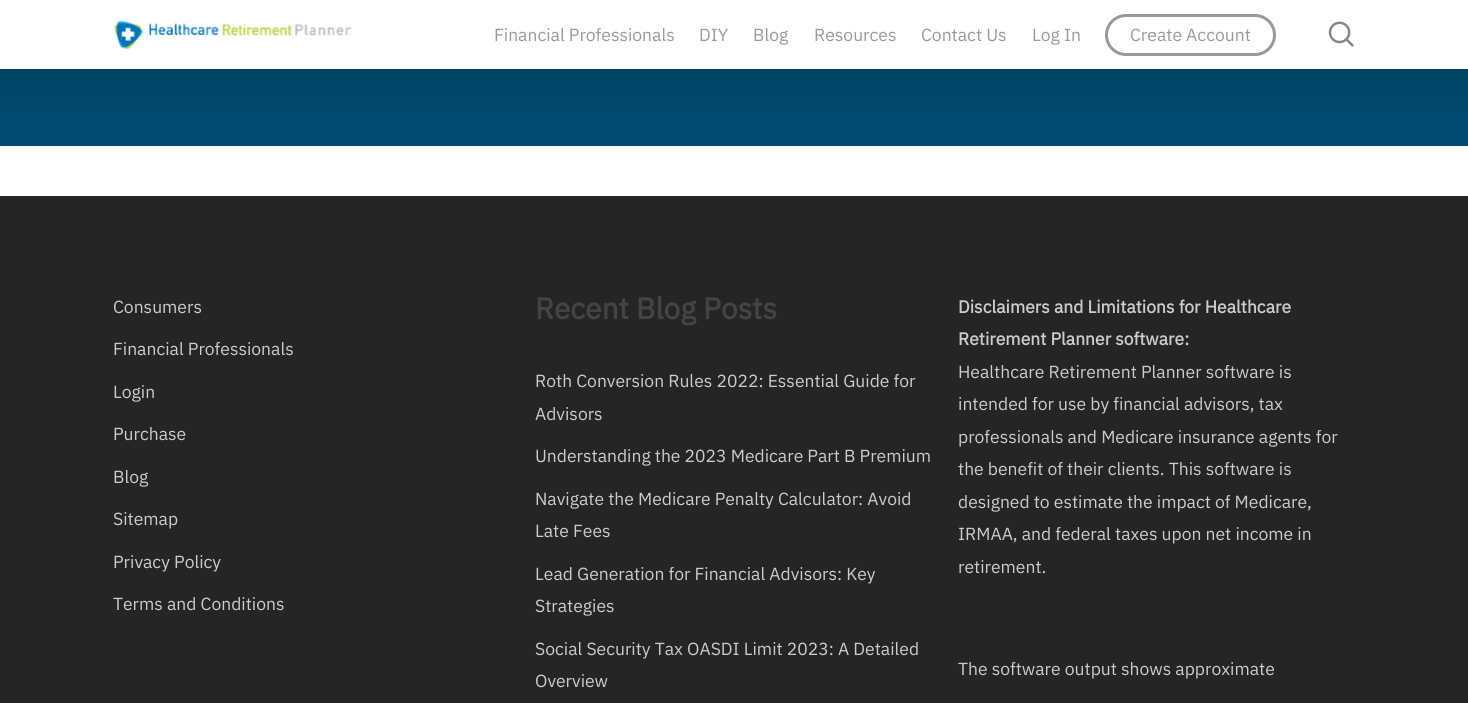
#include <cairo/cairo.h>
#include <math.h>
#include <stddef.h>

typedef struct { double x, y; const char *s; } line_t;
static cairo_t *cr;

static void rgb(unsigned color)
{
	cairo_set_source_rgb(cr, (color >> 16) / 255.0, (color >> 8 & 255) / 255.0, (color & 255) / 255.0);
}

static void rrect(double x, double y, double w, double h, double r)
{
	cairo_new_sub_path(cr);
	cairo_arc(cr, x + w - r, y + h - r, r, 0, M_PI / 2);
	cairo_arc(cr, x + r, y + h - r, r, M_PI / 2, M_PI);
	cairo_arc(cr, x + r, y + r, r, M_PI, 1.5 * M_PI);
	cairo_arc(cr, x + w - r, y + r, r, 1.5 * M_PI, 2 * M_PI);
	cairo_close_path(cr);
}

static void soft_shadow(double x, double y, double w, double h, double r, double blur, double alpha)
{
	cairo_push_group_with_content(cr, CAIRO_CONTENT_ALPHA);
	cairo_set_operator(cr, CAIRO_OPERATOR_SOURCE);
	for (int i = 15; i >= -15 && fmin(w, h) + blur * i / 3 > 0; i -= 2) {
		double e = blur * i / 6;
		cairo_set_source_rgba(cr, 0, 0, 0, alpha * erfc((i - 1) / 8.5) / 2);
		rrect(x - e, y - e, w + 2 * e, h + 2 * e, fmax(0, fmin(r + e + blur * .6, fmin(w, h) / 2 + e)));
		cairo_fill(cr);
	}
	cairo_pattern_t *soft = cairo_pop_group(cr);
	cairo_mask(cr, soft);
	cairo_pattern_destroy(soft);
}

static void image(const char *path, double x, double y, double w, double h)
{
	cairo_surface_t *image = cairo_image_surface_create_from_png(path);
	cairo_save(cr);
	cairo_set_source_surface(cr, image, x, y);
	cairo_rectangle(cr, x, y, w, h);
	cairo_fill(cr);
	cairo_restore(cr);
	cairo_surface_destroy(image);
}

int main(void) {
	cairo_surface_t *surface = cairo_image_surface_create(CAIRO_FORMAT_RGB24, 1468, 703);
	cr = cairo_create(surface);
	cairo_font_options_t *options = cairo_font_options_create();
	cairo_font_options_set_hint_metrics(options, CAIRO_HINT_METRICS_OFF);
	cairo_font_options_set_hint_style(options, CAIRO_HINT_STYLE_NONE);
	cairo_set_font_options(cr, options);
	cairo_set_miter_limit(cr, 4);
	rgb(0xffffff);
	cairo_paint(cr);
	rgb(0x00496e);
	cairo_rectangle(cr, 0, 69, 1468, 77);
	cairo_fill(cr);
	rgb(0x000000);
	soft_shadow(0, 4, 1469, 69, 0, 28, 0.15);
	rgb(0xffffff);
	cairo_rectangle(cr, 0, 0, 1468, 69);
	cairo_fill(cr);
	image("img/1.png", 114, 20, 238, 30);
	rrect(1106.5, 15.5, 168, 39, 19.5);
	rgb(0x999999);
	cairo_set_line_width(cr, 3);
	cairo_stroke(cr);
	image("img/2.png", 1328, 21, 26, 26);
	rgb(0x252525);
	cairo_rectangle(cr, 0, 196, 1468, 507);
	cairo_fill(cr);
	cairo_select_font_face(cr, "IBM Plex Sans", CAIRO_FONT_SLANT_NORMAL, CAIRO_FONT_WEIGHT_NORMAL);
	cairo_set_font_size(cr, 17.5);
	rgb(0x999999);
	{
		static const line_t items[] = {
			{494, 41, "Financial Professionals"},
			{699, 41, "DIY"},
			{753, 41, "Blog"},
			{814, 41, "Resources"},
			{921, 41, "Contact Us"},
			{1032, 41, "Log In"},
			{1130, 41, "Create Account"},
		};
		for (size_t i = 0; i < sizeof items / sizeof *items; i++) {
			cairo_move_to(cr, items[i].x, items[i].y);
			cairo_show_text(cr, items[i].s);
		}
	}
	rgb(0xcccccc);
	{
		static const line_t items[] = {
			{113, 313, "Consumers"},
			{113, 355, "Financial Professionals"},
			{113, 398, "Login"},
			{113, 440, "Purchase"},
			{113, 483, "Blog"},
			{113, 525, "Sitemap"},
			{113, 568, "Privacy Policy"},
			{113, 610, "Terms and Conditions"},
		};
		for (size_t i = 0; i < sizeof items / sizeof *items; i++) {
			cairo_move_to(cr, items[i].x, items[i].y);
			cairo_show_text(cr, items[i].s);
		}
	}
	cairo_select_font_face(cr, "IBM Plex Sans", CAIRO_FONT_SLANT_NORMAL, CAIRO_FONT_WEIGHT_BOLD);
	cairo_set_font_size(cr, 29.75);
	rgb(0x444444);
	cairo_move_to(cr, 535, 319);
	cairo_show_text(cr, "Recent Blog Posts");
	cairo_select_font_face(cr, "IBM Plex Sans", CAIRO_FONT_SLANT_NORMAL, CAIRO_FONT_WEIGHT_NORMAL);
	cairo_set_font_size(cr, 17.5);
	rgb(0xcccccc);
	{
		static const line_t items[] = {
			{535, 387, "Roth Conversion Rules 2022: Essential Guide for"},
			{535, 420, "Advisors"},
			{535, 462, "Understanding the 2023 Medicare Part B Premium"},
			{535, 505, "Navigate the Medicare Penalty Calculator: Avoid"},
			{535, 537, "Late Fees"},
			{535, 580, "Lead Generation for Financial Advisors: Key"},
			{535, 612, "Strategies"},
			{535, 655, "Social Security Tax OASDI Limit 2023: A Detailed"},
			{535, 687, "Overview"},
		};
		for (size_t i = 0; i < sizeof items / sizeof *items; i++) {
			cairo_move_to(cr, items[i].x, items[i].y);
			cairo_show_text(cr, items[i].s);
		}
	}
	cairo_select_font_face(cr, "IBM Plex Sans", CAIRO_FONT_SLANT_NORMAL, CAIRO_FONT_WEIGHT_BOLD);
	cairo_move_to(cr, 958, 313);
	cairo_show_text(cr, "Disclaimers and Limitations for Healthcare");
	cairo_move_to(cr, 958, 345);
	cairo_show_text(cr, "Retirement Planner software:");
	cairo_select_font_face(cr, "IBM Plex Sans", CAIRO_FONT_SLANT_NORMAL, CAIRO_FONT_WEIGHT_NORMAL);
	{
		static const line_t items[] = {
			{958, 378, "Healthcare Retirement Planner software is"},
			{958, 410, "intended for use by financial advisors, tax"},
			{958, 443, "professionals and Medicare insurance agents for"},
			{958, 475, "the benefit of their clients. This software is"},
			{958, 508, "designed to estimate the impact of Medicare,"},
			{958, 540, "IRMAA, and federal taxes upon net income in"},
			{958, 573, "retirement."},
			{958, 675, "The software output shows approximate"},
		};
		for (size_t i = 0; i < sizeof items / sizeof *items; i++) {
			cairo_move_to(cr, items[i].x, items[i].y);
			cairo_show_text(cr, items[i].s);
		}
	}
	cairo_surface_write_to_png(surface, "page.png");
	cairo_font_options_destroy(options);
	cairo_destroy(cr);
	cairo_surface_destroy(surface);
	return 0;
}
